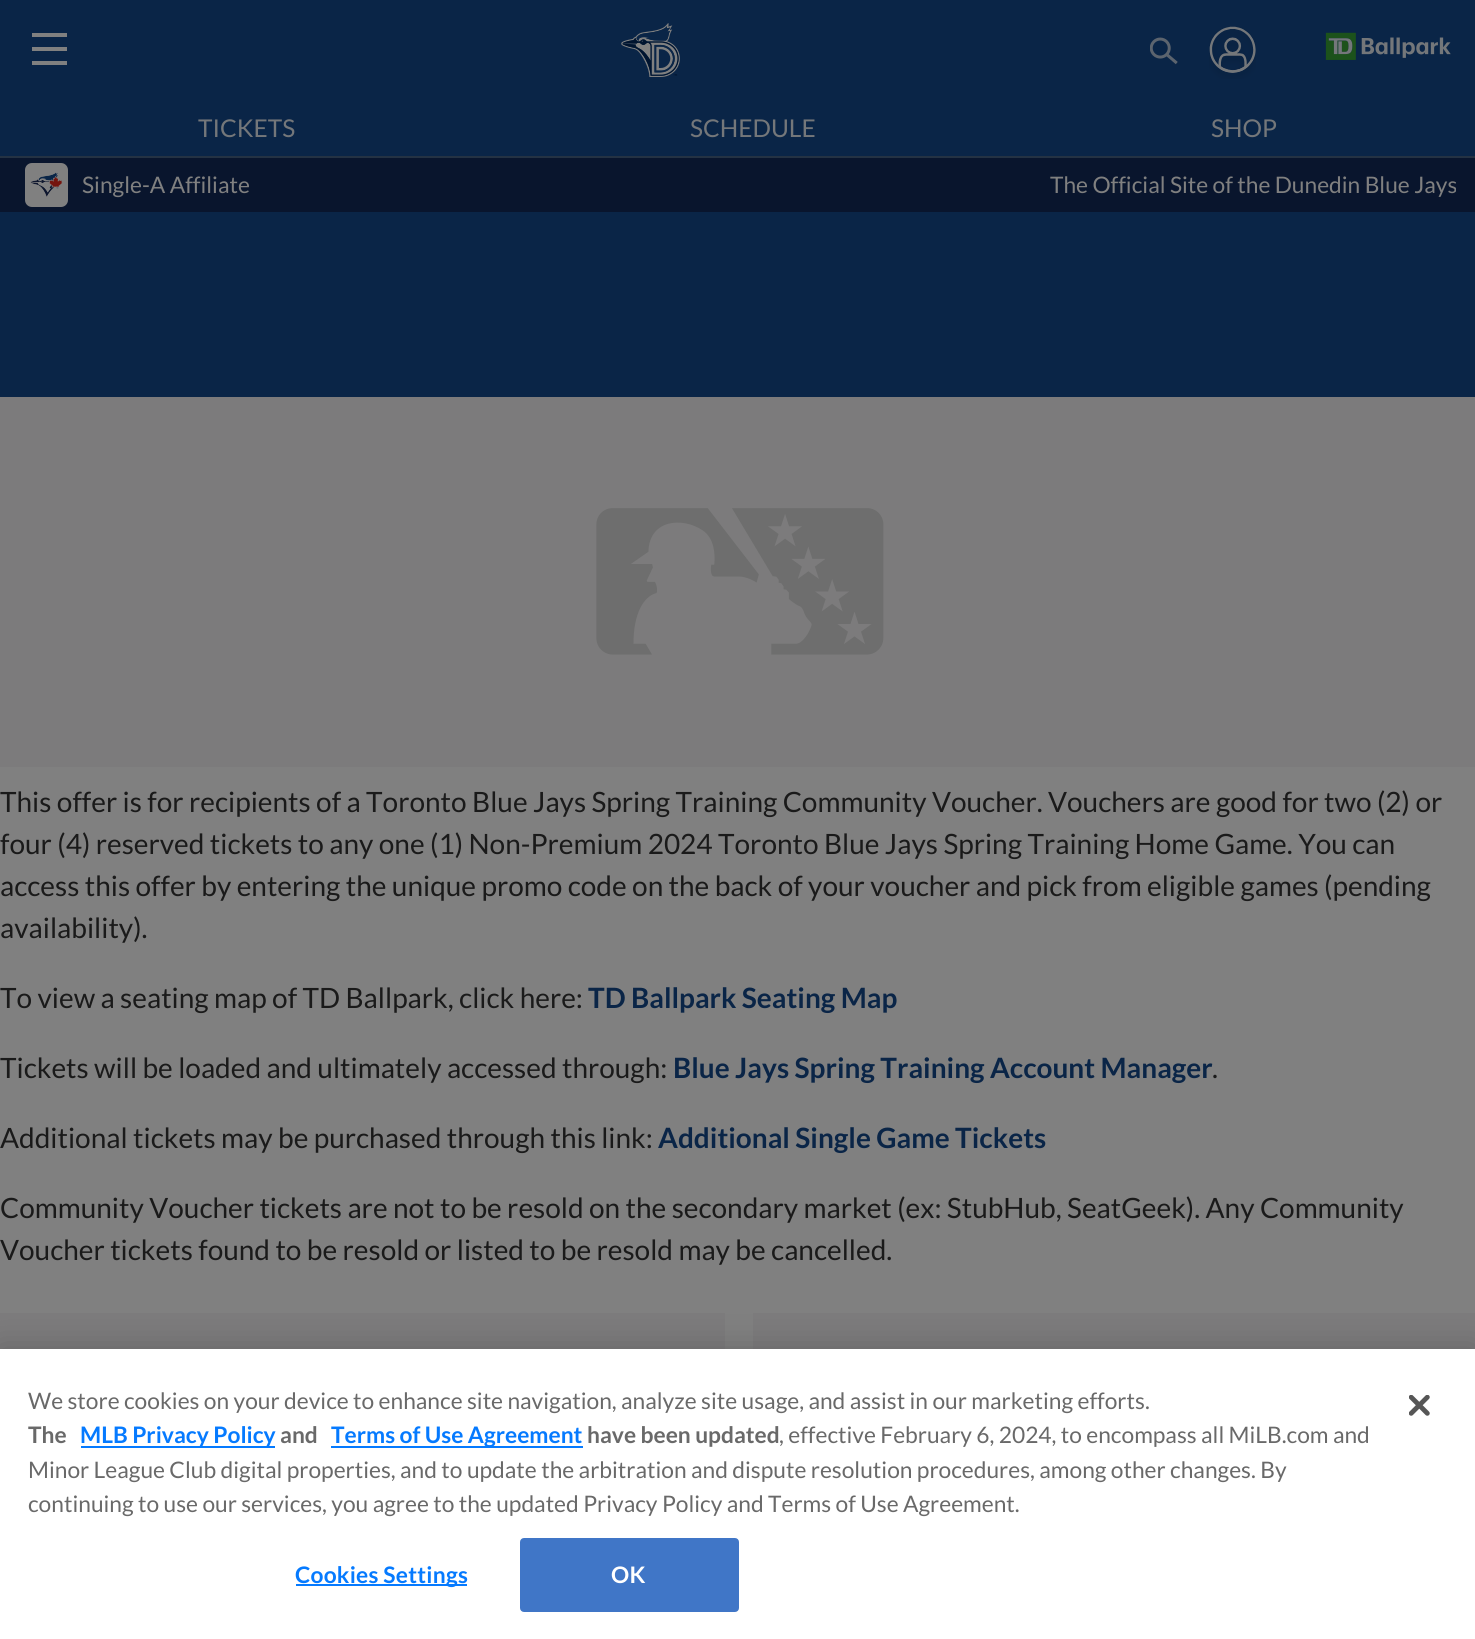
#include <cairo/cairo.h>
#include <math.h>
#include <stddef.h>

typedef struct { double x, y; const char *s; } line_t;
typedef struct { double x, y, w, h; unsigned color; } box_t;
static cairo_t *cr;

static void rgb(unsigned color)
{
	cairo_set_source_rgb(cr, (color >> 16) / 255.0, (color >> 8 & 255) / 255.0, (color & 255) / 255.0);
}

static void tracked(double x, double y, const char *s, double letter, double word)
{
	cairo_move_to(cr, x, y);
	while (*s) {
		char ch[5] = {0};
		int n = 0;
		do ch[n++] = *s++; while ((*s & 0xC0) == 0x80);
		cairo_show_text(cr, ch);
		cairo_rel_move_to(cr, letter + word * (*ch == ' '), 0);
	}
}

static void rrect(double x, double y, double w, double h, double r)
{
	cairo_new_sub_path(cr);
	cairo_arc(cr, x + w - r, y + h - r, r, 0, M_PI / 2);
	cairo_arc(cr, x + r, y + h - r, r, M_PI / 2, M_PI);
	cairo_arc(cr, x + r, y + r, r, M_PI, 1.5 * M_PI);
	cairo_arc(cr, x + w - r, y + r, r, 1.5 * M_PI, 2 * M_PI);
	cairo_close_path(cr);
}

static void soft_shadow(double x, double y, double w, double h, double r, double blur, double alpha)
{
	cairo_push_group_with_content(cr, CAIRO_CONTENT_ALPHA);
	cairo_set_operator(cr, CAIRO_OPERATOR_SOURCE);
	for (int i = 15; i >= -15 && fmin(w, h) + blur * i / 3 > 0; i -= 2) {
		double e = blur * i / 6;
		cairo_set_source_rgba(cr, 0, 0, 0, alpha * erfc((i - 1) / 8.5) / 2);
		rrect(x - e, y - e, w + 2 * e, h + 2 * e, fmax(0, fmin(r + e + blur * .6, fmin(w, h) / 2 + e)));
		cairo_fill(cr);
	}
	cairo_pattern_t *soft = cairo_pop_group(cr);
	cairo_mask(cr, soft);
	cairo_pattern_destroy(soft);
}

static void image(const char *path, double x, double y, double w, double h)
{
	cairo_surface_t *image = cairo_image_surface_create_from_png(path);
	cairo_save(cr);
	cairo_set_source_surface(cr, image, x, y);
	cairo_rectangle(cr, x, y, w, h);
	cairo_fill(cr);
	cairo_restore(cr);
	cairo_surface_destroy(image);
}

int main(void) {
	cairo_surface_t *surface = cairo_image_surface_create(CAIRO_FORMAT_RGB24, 1475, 1639);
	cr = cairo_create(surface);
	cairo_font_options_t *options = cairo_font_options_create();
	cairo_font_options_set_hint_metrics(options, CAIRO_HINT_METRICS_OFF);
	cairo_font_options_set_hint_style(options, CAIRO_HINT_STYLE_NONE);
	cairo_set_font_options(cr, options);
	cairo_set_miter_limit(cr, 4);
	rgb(0x0a2547);
	cairo_paint(cr);
	{
		static const box_t items[] = {
			{0, 158, 1475, 54, 0x09152d},
			{0, 156, 1475, 2, 0x243243},
			{32, 47, 35, 4, 0x808080},
			{32, 33, 35, 4, 0x808080},
			{32, 61, 35, 4, 0x808080},
		};
		for (size_t i = 0; i < sizeof items / sizeof *items; i++) {
			rgb(items[i].color);
			cairo_rectangle(cr, items[i].x, items[i].y, items[i].w, items[i].h);
			cairo_fill(cr);
		}
	}
	image("img/1.png", 621, 23, 59, 54);
	image("img/2.png", 1150, 37, 28, 28);
	image("img/3.png", 1209, 26, 47, 53);
	image("img/4.png", 1325, 32, 126, 28);
	rrect(25, 163, 43, 44, 7);
	cairo_fill(cr);
	image("img/5.png", 30, 172, 33, 25);
	cairo_rectangle(cr, 0, 767, 1475, 582);
	cairo_fill(cr);
	image("img/6.png", 0, 397, 1475, 370);
	image("img/7.png", 0, 1313, 725, 36);
	image("img/8.png", 753, 1313, 722, 36);
	rgb(0x000000);
	soft_shadow(0, 1349, 1475, 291, 0, 16, 0.2);
	{
		static const box_t items[] = {
			{0, 1349, 1475, 290, 0xffffff},
			{81, 1446, 194, 2, 0x057aff},
			{331, 1446, 252, 2, 0x057aff},
			{296, 1584, 171, 2, 0x057aff},
		};
		for (size_t i = 0; i < sizeof items / sizeof *items; i++) {
			rgb(items[i].color);
			cairo_rectangle(cr, items[i].x, items[i].y, items[i].w, items[i].h);
			cairo_fill(cr);
		}
	}
	rgb(0x4076c7);
	rrect(521, 1539, 217, 72, 3);
	cairo_fill_preserve(cr);
	cairo_stroke(cr);
	image("img/9.png", 1409, 1395, 21, 21);
	cairo_select_font_face(cr, "Lato", CAIRO_FONT_SLANT_NORMAL, CAIRO_FONT_WEIGHT_NORMAL);
	cairo_set_font_size(cr, 24.5);
	rgb(0x74777a);
	{
		static const line_t items[] = {
			{198, 137, "TICKETS"},
			{690, 137, "SCHEDULE"},
			{1211, 137, "SHOP"},
		};
		for (size_t i = 0; i < sizeof items / sizeof *items; i++) {
			cairo_move_to(cr, items[i].x, items[i].y);
			cairo_show_text(cr, items[i].s);
		}
	}
	cairo_set_font_size(cr, 22.75);
	rgb(0x808080);
	cairo_move_to(cr, 82, 193);
	cairo_show_text(cr, "Single-A Affiliate");
	cairo_move_to(cr, 1050, 193);
	cairo_show_text(cr, "The Official Site of the Dunedin Blue Jays");
	cairo_set_font_size(cr, 28);
	rgb(0x1a1a1a);
	{
		static const line_t items[] = {
			{0, 812, "This offer is for recipients of a Toronto Blue Jays Spring Training Community Voucher. Vouchers are good for two (2) or"},
			{0, 854, "four (4) reserved tickets to any one (1) Non-Premium 2024 Toronto Blue Jays Spring Training Home Game. You can"},
			{0, 896, "access this offer by entering the unique promo code on the back of your voucher and pick from eligible games (pending"},
			{0, 938, "availability)."},
			{0, 1008, "To view a seating map of TD Ballpark, click here:"},
		};
		for (size_t i = 0; i < sizeof items / sizeof *items; i++) {
			cairo_move_to(cr, items[i].x, items[i].y);
			cairo_show_text(cr, items[i].s);
		}
	}
	cairo_select_font_face(cr, "Lato", CAIRO_FONT_SLANT_NORMAL, CAIRO_FONT_WEIGHT_BOLD);
	rgb(0x0a2547);
	cairo_move_to(cr, 588, 1008);
	cairo_show_text(cr, "TD Ballpark Seating Map");
	cairo_select_font_face(cr, "Lato", CAIRO_FONT_SLANT_NORMAL, CAIRO_FONT_WEIGHT_NORMAL);
	rgb(0x1a1a1a);
	cairo_move_to(cr, 0, 1078);
	cairo_show_text(cr, "Tickets will be loaded and ultimately accessed through:");
	cairo_select_font_face(cr, "Lato", CAIRO_FONT_SLANT_NORMAL, CAIRO_FONT_WEIGHT_BOLD);
	rgb(0x0a2547);
	cairo_move_to(cr, 673, 1078);
	cairo_show_text(cr, "Blue Jays Spring Training Account Manager");
	cairo_select_font_face(cr, "Lato", CAIRO_FONT_SLANT_NORMAL, CAIRO_FONT_WEIGHT_NORMAL);
	rgb(0x1a1a1a);
	cairo_move_to(cr, 1212, 1078);
	cairo_show_text(cr, ".");
	cairo_move_to(cr, 0, 1148);
	cairo_show_text(cr, "Additional tickets may be purchased through this link:");
	cairo_select_font_face(cr, "Lato", CAIRO_FONT_SLANT_NORMAL, CAIRO_FONT_WEIGHT_BOLD);
	rgb(0x0a2547);
	cairo_move_to(cr, 658, 1148);
	cairo_show_text(cr, "Additional Single Game Tickets");
	cairo_select_font_face(cr, "Lato", CAIRO_FONT_SLANT_NORMAL, CAIRO_FONT_WEIGHT_NORMAL);
	rgb(0x1a1a1a);
	cairo_move_to(cr, 0, 1218);
	cairo_show_text(cr, "Community Voucher tickets are not to be resold on the secondary market (ex: StubHub, SeatGeek). Any Community");
	cairo_move_to(cr, 0, 1260);
	cairo_show_text(cr, "Voucher tickets found to be resold or listed to be resold may be cancelled.");
	cairo_set_font_size(cr, 22.75);
	rgb(0x696969);
	cairo_move_to(cr, 28, 1409);
	cairo_show_text(cr, "We store cookies on your device to enhance site navigation, analyze site usage, and assist in our marketing efforts.");
	cairo_select_font_face(cr, "Lato", CAIRO_FONT_SLANT_NORMAL, CAIRO_FONT_WEIGHT_BOLD);
	cairo_move_to(cr, 28, 1443);
	cairo_show_text(cr, "The");
	rgb(0x057aff);
	cairo_move_to(cr, 80, 1443);
	cairo_show_text(cr, "MLB Privacy Policy");
	rgb(0x696969);
	cairo_move_to(cr, 280, 1443);
	cairo_show_text(cr, "and");
	rgb(0x057aff);
	cairo_move_to(cr, 331, 1443);
	cairo_show_text(cr, "Terms of Use Agreement");
	rgb(0x696969);
	cairo_move_to(cr, 587, 1443);
	cairo_show_text(cr, "have been updated");
	cairo_select_font_face(cr, "Lato", CAIRO_FONT_SLANT_NORMAL, CAIRO_FONT_WEIGHT_NORMAL);
	{
		static const line_t items[] = {
			{779, 1443, ", effective February 6, 2024, to encompass all MiLB.com and"},
			{28, 1478, "Minor League Club digital properties, and to update the arbitration and dispute resolution procedures, among other changes. By"},
			{28, 1512, "continuing to use our services, you agree to the updated Privacy Policy and Terms of Use Agreement."},
		};
		for (size_t i = 0; i < sizeof items / sizeof *items; i++) {
			cairo_move_to(cr, items[i].x, items[i].y);
			cairo_show_text(cr, items[i].s);
		}
	}
	cairo_select_font_face(cr, "Lato", CAIRO_FONT_SLANT_NORMAL, CAIRO_FONT_WEIGHT_BOLD);
	rgb(0x057aff);
	tracked(295, 1583, "Cookies Settings", 0.25, 0);
	rgb(0xffffff);
	tracked(611, 1583, "OK", 0.25, 0);
	cairo_surface_write_to_png(surface, "page.png");
	cairo_font_options_destroy(options);
	cairo_destroy(cr);
	cairo_surface_destroy(surface);
	return 0;
}
